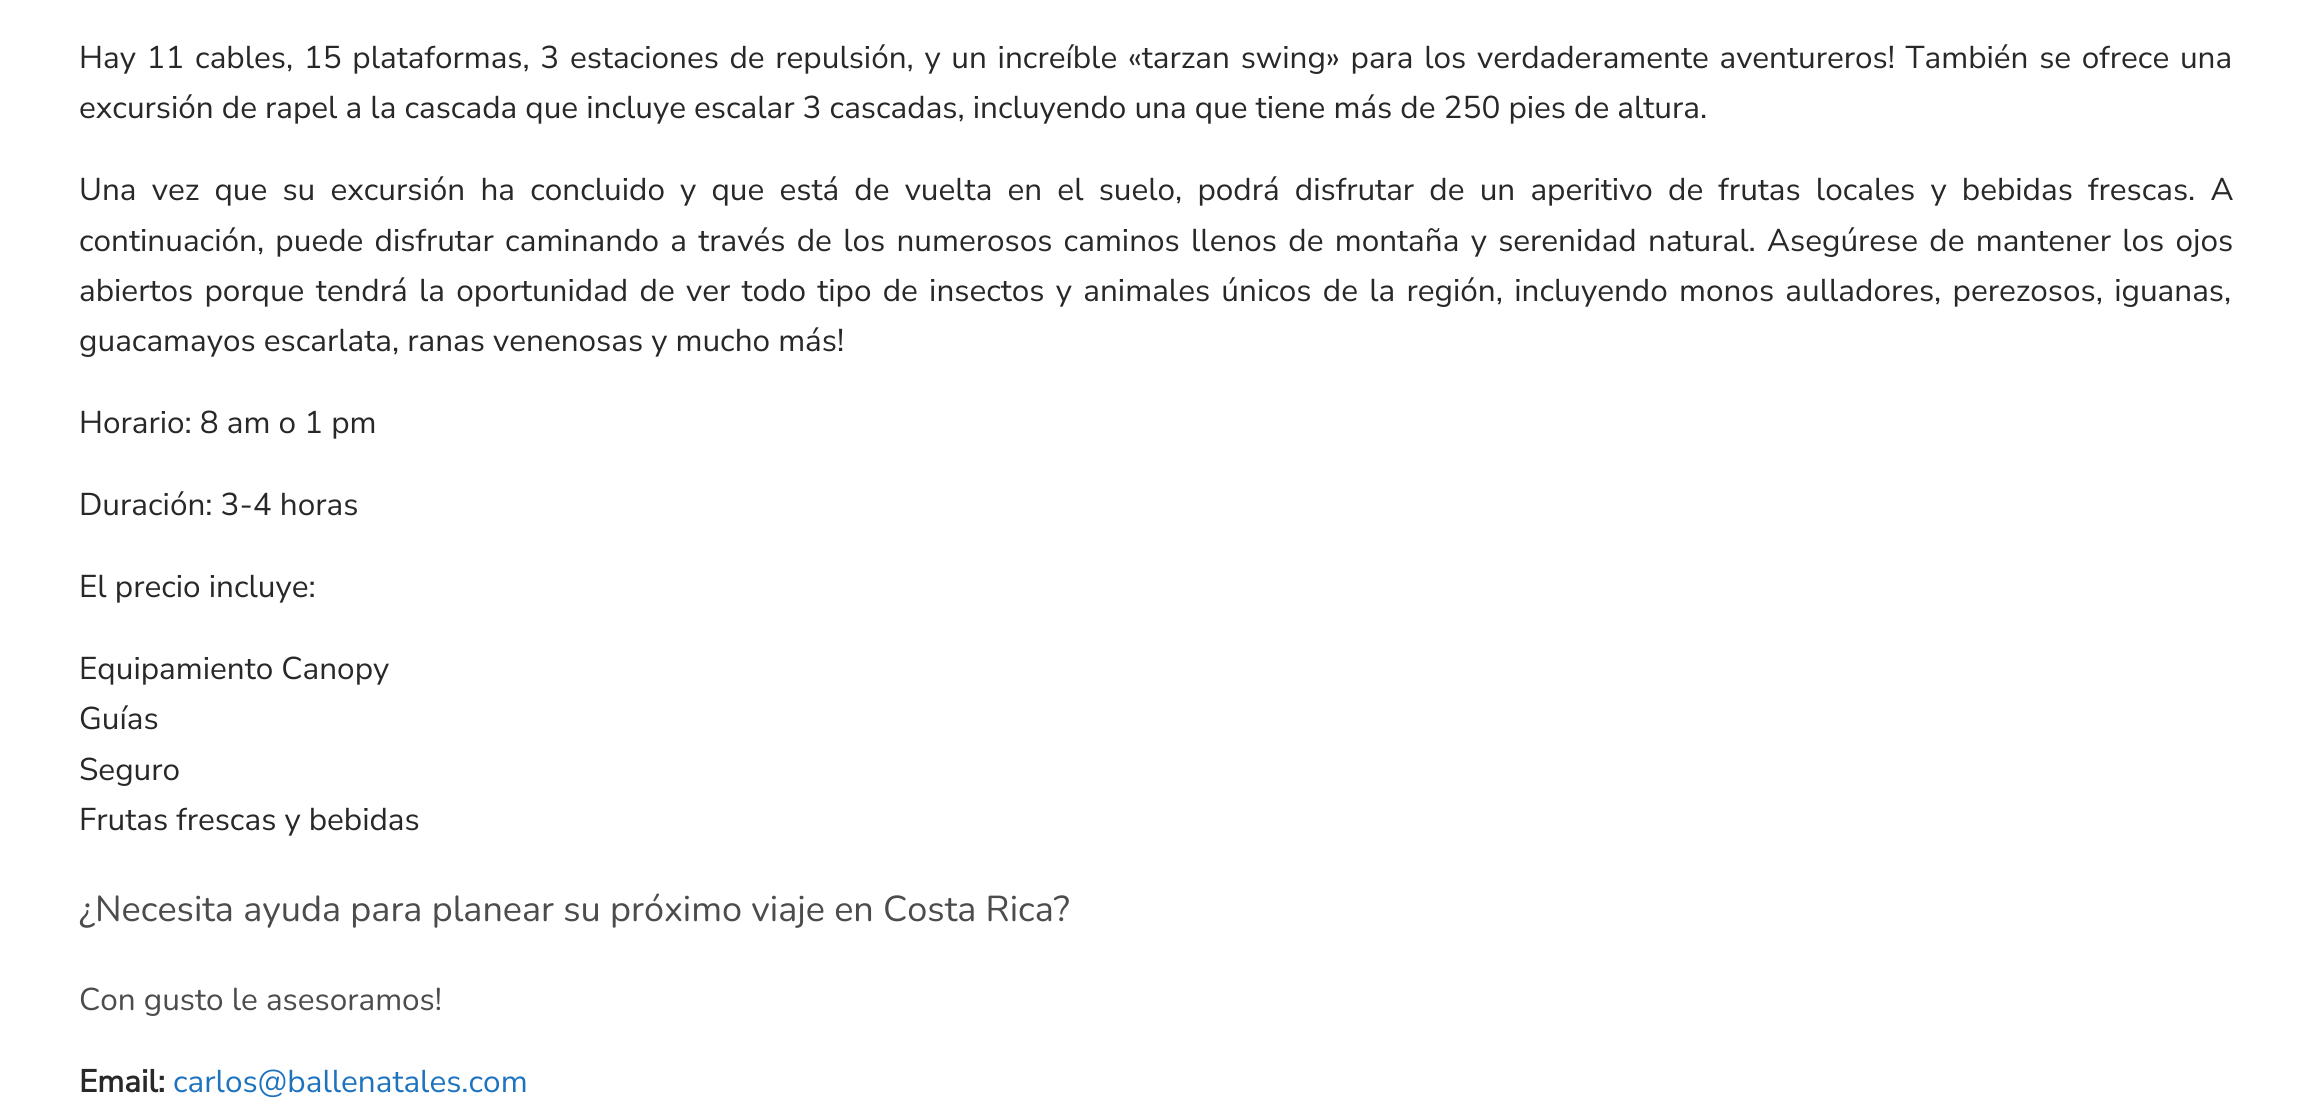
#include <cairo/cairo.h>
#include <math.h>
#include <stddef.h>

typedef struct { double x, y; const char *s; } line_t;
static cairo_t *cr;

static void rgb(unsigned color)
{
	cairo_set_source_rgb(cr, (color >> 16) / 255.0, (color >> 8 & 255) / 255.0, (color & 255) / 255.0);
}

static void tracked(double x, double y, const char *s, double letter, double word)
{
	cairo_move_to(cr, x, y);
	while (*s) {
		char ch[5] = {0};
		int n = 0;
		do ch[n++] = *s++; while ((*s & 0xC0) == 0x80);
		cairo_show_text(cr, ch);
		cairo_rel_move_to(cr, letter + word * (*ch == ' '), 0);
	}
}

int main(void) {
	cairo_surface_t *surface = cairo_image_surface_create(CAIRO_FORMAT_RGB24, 2309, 1106);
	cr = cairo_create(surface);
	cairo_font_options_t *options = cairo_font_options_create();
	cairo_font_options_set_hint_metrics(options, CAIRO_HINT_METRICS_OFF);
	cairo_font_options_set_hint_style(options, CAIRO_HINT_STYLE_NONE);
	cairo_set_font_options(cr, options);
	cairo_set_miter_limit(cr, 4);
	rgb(0xffffff);
	cairo_paint(cr);
	cairo_select_font_face(cr, "Nunito Sans ExtraLight", CAIRO_FONT_SLANT_NORMAL, CAIRO_FONT_WEIGHT_NORMAL);
	cairo_set_font_size(cr, 31.5);
	rgb(0x282828);
	tracked(79, 68, "Hay 11 cables, 15 plataformas, 3 estaciones de repulsión, y un increíble «tarzan swing» para los verdaderamente aventureros! También se ofrece una", 0, 2.6);
	cairo_move_to(cr, 79, 118);
	cairo_show_text(cr, "excursión de rapel a la cascada que incluye escalar 3 cascadas, incluyendo una que tiene más de 250 pies de altura.");
	tracked(79, 200, "Una vez que su excursión ha concluido y que está de vuelta en el suelo, podrá disfrutar de un aperitivo de frutas locales y bebidas frescas. A", 0, 7.1);
	tracked(79, 251, "continuación, puede disfrutar caminando a través de los numerosos caminos llenos de montaña y serenidad natural. Asegúrese de mantener los ojos", 0, 3.2);
	tracked(79, 301, "abiertos porque tendrá la oportunidad de ver todo tipo de insectos y animales únicos de la región, incluyendo monos aulladores, perezosos, iguanas,", 0, 3.2);
	{
		static const line_t items[] = {
			{79, 351, "guacamayos escarlata, ranas venenosas y mucho más!"},
			{79, 433, "Horario: 8 am o 1 pm"},
			{79, 515, "Duración: 3-4 horas"},
			{79, 597, "El precio incluye:"},
			{79, 679, "Equipamiento Canopy"},
			{79, 729, "Guías"},
			{79, 780, "Seguro"},
			{79, 830, "Frutas frescas y bebidas"},
		};
		for (size_t i = 0; i < sizeof items / sizeof *items; i++) {
			cairo_move_to(cr, items[i].x, items[i].y);
			cairo_show_text(cr, items[i].s);
		}
	}
	cairo_select_font_face(cr, "Nunito ExtraLight", CAIRO_FONT_SLANT_NORMAL, CAIRO_FONT_WEIGHT_NORMAL);
	cairo_set_font_size(cr, 36);
	rgb(0x4c4c4c);
	cairo_move_to(cr, 79, 921);
	cairo_show_text(cr, "¿Necesita ayuda para planear su próximo viaje en Costa Rica?");
	cairo_set_font_size(cr, 31.5);
	cairo_move_to(cr, 79, 1010);
	cairo_show_text(cr, "Con gusto le asesoramos!");
	cairo_select_font_face(cr, "Nunito Sans", CAIRO_FONT_SLANT_NORMAL, CAIRO_FONT_WEIGHT_BOLD);
	rgb(0x282828);
	cairo_move_to(cr, 79, 1092);
	cairo_show_text(cr, "Email:");
	cairo_select_font_face(cr, "Nunito Sans ExtraLight", CAIRO_FONT_SLANT_NORMAL, CAIRO_FONT_WEIGHT_NORMAL);
	rgb(0x1e73be);
	cairo_move_to(cr, 173, 1092);
	cairo_show_text(cr, "carlos@ballenatales.com");
	cairo_surface_write_to_png(surface, "page.png");
	cairo_font_options_destroy(options);
	cairo_destroy(cr);
	cairo_surface_destroy(surface);
	return 0;
}
